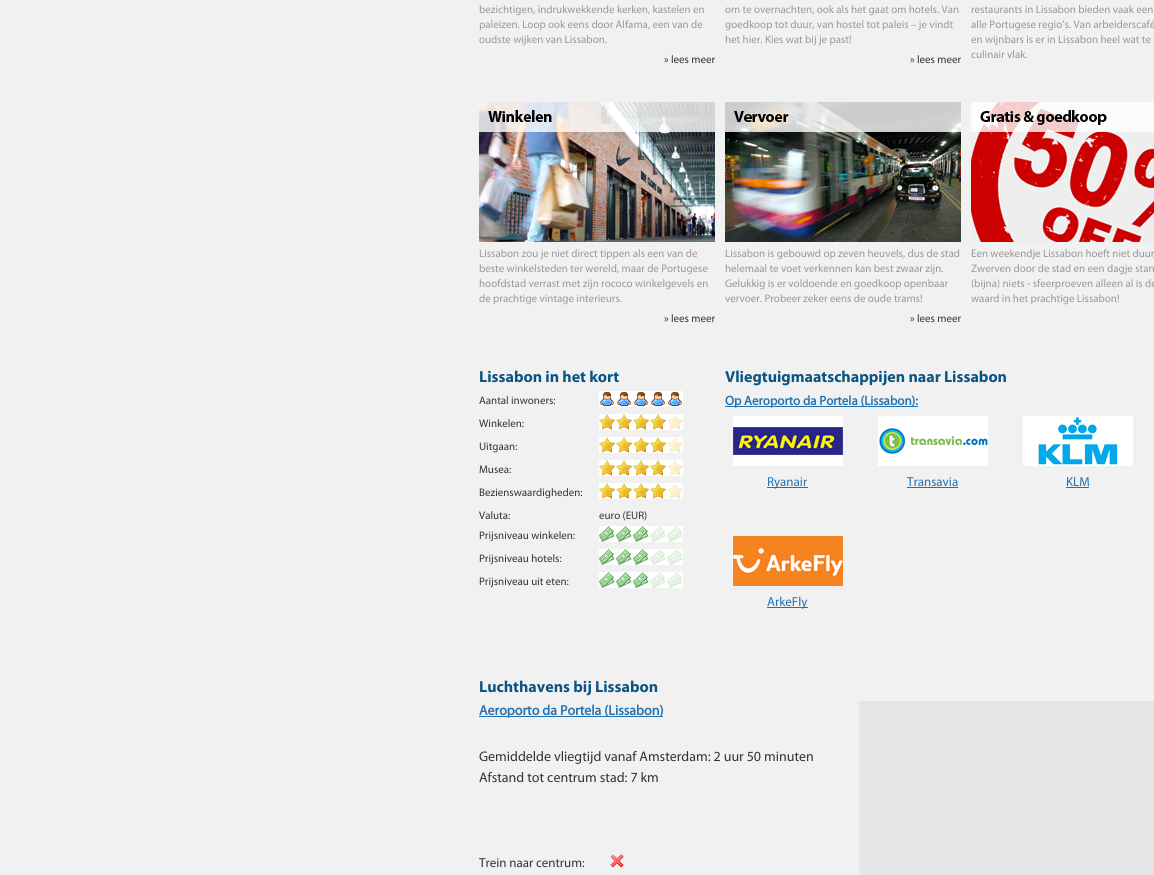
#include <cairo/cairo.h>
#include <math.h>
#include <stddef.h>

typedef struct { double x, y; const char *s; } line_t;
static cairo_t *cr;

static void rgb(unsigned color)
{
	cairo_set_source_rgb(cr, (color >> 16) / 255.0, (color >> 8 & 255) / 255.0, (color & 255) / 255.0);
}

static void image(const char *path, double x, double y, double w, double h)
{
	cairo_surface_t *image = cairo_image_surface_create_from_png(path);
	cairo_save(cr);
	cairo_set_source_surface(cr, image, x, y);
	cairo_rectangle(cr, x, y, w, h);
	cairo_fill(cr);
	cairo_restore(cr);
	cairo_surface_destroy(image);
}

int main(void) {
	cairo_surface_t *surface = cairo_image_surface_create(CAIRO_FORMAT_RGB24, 1154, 875);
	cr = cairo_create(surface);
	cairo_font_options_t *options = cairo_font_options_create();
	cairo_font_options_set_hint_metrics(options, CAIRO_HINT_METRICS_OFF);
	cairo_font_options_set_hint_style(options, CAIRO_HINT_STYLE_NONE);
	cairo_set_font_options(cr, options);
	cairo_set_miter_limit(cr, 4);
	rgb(0xf1f1f1);
	cairo_paint(cr);
	image("img/1.png", 479, 102, 236, 140);
	image("img/2.png", 725, 102, 236, 140);
	image("img/3.png", 971, 102, 183, 140);
	image("img/4.png", 599, 391, 84, 16);
	image("img/5.png", 599, 414, 84, 16);
	image("img/5.png", 599, 437, 84, 16);
	image("img/5.png", 599, 460, 84, 16);
	image("img/5.png", 599, 483, 84, 16);
	image("img/6.png", 599, 526, 84, 16);
	image("img/6.png", 599, 549, 84, 16);
	image("img/6.png", 599, 572, 84, 16);
	rgb(0x2271b1);
	cairo_rectangle(cr, 725, 406, 193, 1);
	cairo_fill(cr);
	image("img/7.png", 733, 416, 110, 50);
	cairo_rectangle(cr, 767, 487, 41, 1);
	cairo_fill(cr);
	image("img/8.png", 878, 416, 110, 50);
	cairo_rectangle(cr, 907, 487, 51, 1);
	cairo_fill(cr);
	image("img/9.png", 1023, 416, 110, 50);
	cairo_rectangle(cr, 1066, 487, 23, 1);
	cairo_fill(cr);
	image("img/10.png", 733, 536, 110, 50);
	cairo_rectangle(cr, 767, 607, 41, 1);
	cairo_fill(cr);
	cairo_rectangle(cr, 479, 716, 184, 1);
	cairo_fill(cr);
	image("img/11.png", 610, 853, 14, 15);
	rgb(0xe5e5e5);
	cairo_rectangle(cr, 859, 701, 295, 174);
	cairo_fill(cr);
	cairo_select_font_face(cr, "Myriad", CAIRO_FONT_SLANT_NORMAL, CAIRO_FONT_WEIGHT_NORMAL);
	cairo_set_font_size(cr, 11);
	rgb(0x989898);
	{
		static const line_t items[] = {
			{479, 13, "bezichtigen, indrukwekkende kerken, kastelen en"},
			{479, 28, "paleizen. Loop ook eens door Alfama, een van de"},
			{479, 43, "oudste wijken van Lissabon."},
		};
		for (size_t i = 0; i < sizeof items / sizeof *items; i++) {
			cairo_move_to(cr, items[i].x, items[i].y);
			cairo_show_text(cr, items[i].s);
		}
	}
	rgb(0x333333);
	cairo_move_to(cr, 664, 63);
	cairo_show_text(cr, "» lees meer");
	rgb(0x989898);
	{
		static const line_t items[] = {
			{725, 13, "om te overnachten, ook als het gaat om hotels. Van"},
			{725, 28, "goedkoop tot duur, van hostel tot paleis – je vindt"},
			{725, 43, "het hier. Kies wat bij je past!"},
		};
		for (size_t i = 0; i < sizeof items / sizeof *items; i++) {
			cairo_move_to(cr, items[i].x, items[i].y);
			cairo_show_text(cr, items[i].s);
		}
	}
	rgb(0x333333);
	cairo_move_to(cr, 910, 63);
	cairo_show_text(cr, "» lees meer");
	rgb(0x989898);
	{
		static const line_t items[] = {
			{971, 13, "restaurants in Lissabon bieden vaak een"},
			{971, 28, "alle Portugese regio’s. Van arbeiderscafé"},
			{971, 43, "en wijnbars is er in Lissabon heel wat te"},
			{971, 58, "culinair vlak."},
			{479, 257, "Lissabon zou je niet direct tippen als een van de"},
			{479, 272, "beste winkelsteden ter wereld, maar de Portugese"},
			{479, 287, "hoofdstad verrast met zijn rococo winkelgevels en"},
			{479, 302, "de prachtige vintage interieurs."},
		};
		for (size_t i = 0; i < sizeof items / sizeof *items; i++) {
			cairo_move_to(cr, items[i].x, items[i].y);
			cairo_show_text(cr, items[i].s);
		}
	}
	rgb(0x333333);
	cairo_move_to(cr, 664, 322);
	cairo_show_text(cr, "» lees meer");
	rgb(0x989898);
	{
		static const line_t items[] = {
			{725, 257, "Lissabon is gebouwd op zeven heuvels, dus de stad"},
			{725, 272, "helemaal te voet verkennen kan best zwaar zijn."},
			{725, 287, "Gelukkig is er voldoende en goedkoop openbaar"},
			{725, 302, "vervoer. Probeer zeker eens de oude trams!"},
		};
		for (size_t i = 0; i < sizeof items / sizeof *items; i++) {
			cairo_move_to(cr, items[i].x, items[i].y);
			cairo_show_text(cr, items[i].s);
		}
	}
	rgb(0x333333);
	cairo_move_to(cr, 910, 322);
	cairo_show_text(cr, "» lees meer");
	rgb(0x989898);
	{
		static const line_t items[] = {
			{971, 257, "Een weekendje Lissabon hoeft niet duur"},
			{971, 272, "Zwerven door de stad en een dagje stan"},
			{971, 287, "(bijna) niets - sfeerproeven alleen al is de"},
			{971, 302, "waard in het prachtige Lissabon!"},
		};
		for (size_t i = 0; i < sizeof items / sizeof *items; i++) {
			cairo_move_to(cr, items[i].x, items[i].y);
			cairo_show_text(cr, items[i].s);
		}
	}
	cairo_select_font_face(cr, "Myriad", CAIRO_FONT_SLANT_NORMAL, CAIRO_FONT_WEIGHT_BOLD);
	cairo_set_font_size(cr, 16);
	rgb(0x0c5484);
	cairo_move_to(cr, 479, 382);
	cairo_show_text(cr, "Lissabon in het kort");
	cairo_select_font_face(cr, "Myriad", CAIRO_FONT_SLANT_NORMAL, CAIRO_FONT_WEIGHT_NORMAL);
	cairo_set_font_size(cr, 11);
	rgb(0x333333);
	{
		static const line_t items[] = {
			{479, 404, "Aantal inwoners:"},
			{479, 427, "Winkelen:"},
			{479, 450, "Uitgaan:"},
			{479, 473, "Musea:"},
			{479, 496, "Bezienswaardigheden:"},
			{479, 519, "Valuta:"},
			{599, 519, "euro (EUR)"},
			{479, 539, "Prijsniveau winkelen:"},
			{479, 562, "Prijsniveau hotels:"},
			{479, 585, "Prijsniveau uit eten:"},
		};
		for (size_t i = 0; i < sizeof items / sizeof *items; i++) {
			cairo_move_to(cr, items[i].x, items[i].y);
			cairo_show_text(cr, items[i].s);
		}
	}
	cairo_select_font_face(cr, "Myriad", CAIRO_FONT_SLANT_NORMAL, CAIRO_FONT_WEIGHT_BOLD);
	cairo_set_font_size(cr, 16);
	rgb(0x0c5484);
	cairo_move_to(cr, 725, 382);
	cairo_show_text(cr, "Vliegtuigmaatschappijen naar Lissabon");
	cairo_select_font_face(cr, "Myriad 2", CAIRO_FONT_SLANT_NORMAL, CAIRO_FONT_WEIGHT_BOLD);
	cairo_set_font_size(cr, 13);
	rgb(0x2271b1);
	cairo_move_to(cr, 725, 405);
	cairo_show_text(cr, "Op Aeroporto da Portela (Lissabon):");
	cairo_select_font_face(cr, "Myriad", CAIRO_FONT_SLANT_NORMAL, CAIRO_FONT_WEIGHT_NORMAL);
	{
		static const line_t items[] = {
			{767, 486, "Ryanair"},
			{907, 486, "Transavia"},
			{1066, 486, "KLM"},
			{767, 606, "ArkeFly"},
		};
		for (size_t i = 0; i < sizeof items / sizeof *items; i++) {
			cairo_move_to(cr, items[i].x, items[i].y);
			cairo_show_text(cr, items[i].s);
		}
	}
	cairo_select_font_face(cr, "Myriad", CAIRO_FONT_SLANT_NORMAL, CAIRO_FONT_WEIGHT_BOLD);
	cairo_set_font_size(cr, 16);
	rgb(0x0c5484);
	cairo_move_to(cr, 479, 692);
	cairo_show_text(cr, "Luchthavens bij Lissabon");
	cairo_select_font_face(cr, "Myriad 2", CAIRO_FONT_SLANT_NORMAL, CAIRO_FONT_WEIGHT_BOLD);
	cairo_set_font_size(cr, 14);
	rgb(0x2271b1);
	cairo_move_to(cr, 479, 715);
	cairo_show_text(cr, "Aeroporto da Portela (Lissabon)");
	cairo_select_font_face(cr, "Myriad", CAIRO_FONT_SLANT_NORMAL, CAIRO_FONT_WEIGHT_NORMAL);
	rgb(0x333333);
	cairo_move_to(cr, 479, 761);
	cairo_show_text(cr, "Gemiddelde vliegtijd vanaf Amsterdam: 2 uur 50 minuten");
	cairo_move_to(cr, 479, 782);
	cairo_show_text(cr, "Afstand tot centrum stad: 7 km");
	cairo_set_font_size(cr, 13);
	cairo_move_to(cr, 479, 867);
	cairo_show_text(cr, "Trein naar centrum:");
	cairo_surface_write_to_png(surface, "page.png");
	cairo_font_options_destroy(options);
	cairo_destroy(cr);
	cairo_surface_destroy(surface);
	return 0;
}
